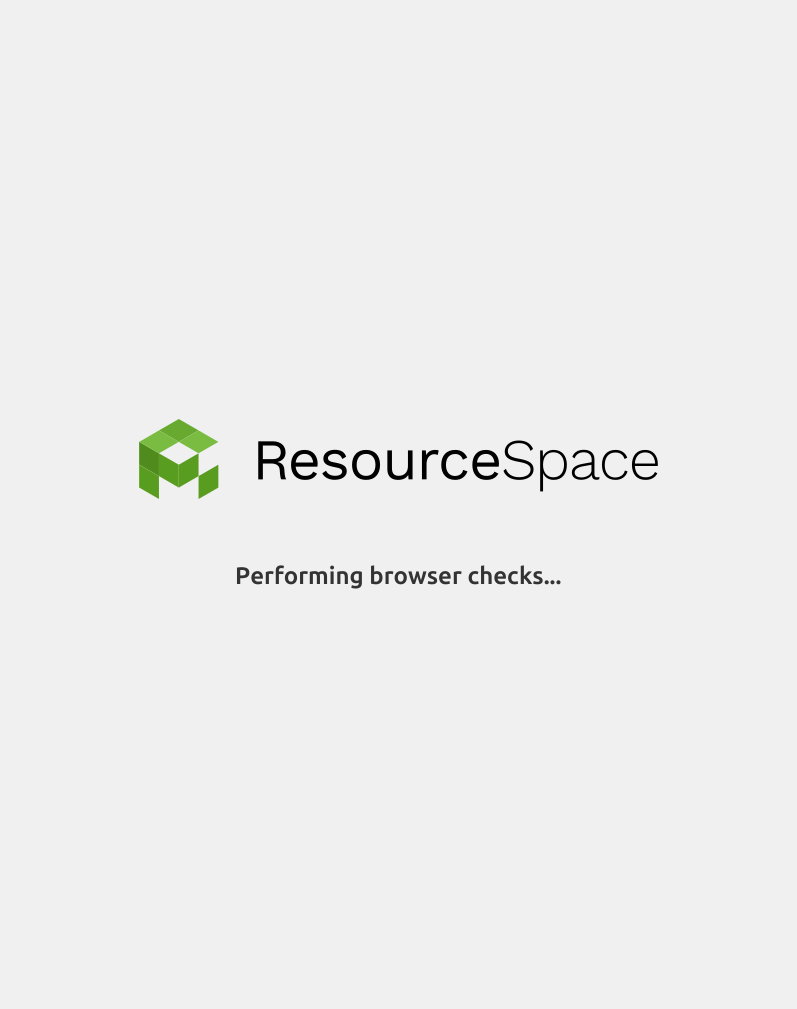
#include <cairo/cairo.h>
#include <math.h>
#include <stddef.h>

static cairo_t *cr;

static void rgb(unsigned color)
{
	cairo_set_source_rgb(cr, (color >> 16) / 255.0, (color >> 8 & 255) / 255.0, (color & 255) / 255.0);
}

static void image(const char *path, double x, double y, double w, double h)
{
	cairo_surface_t *image = cairo_image_surface_create_from_png(path);
	cairo_save(cr);
	cairo_set_source_surface(cr, image, x, y);
	cairo_rectangle(cr, x, y, w, h);
	cairo_fill(cr);
	cairo_restore(cr);
	cairo_surface_destroy(image);
}

int main(void) {
	cairo_surface_t *surface = cairo_image_surface_create(CAIRO_FORMAT_RGB24, 797, 1009);
	cr = cairo_create(surface);
	cairo_font_options_t *options = cairo_font_options_create();
	cairo_font_options_set_hint_metrics(options, CAIRO_HINT_METRICS_OFF);
	cairo_font_options_set_hint_style(options, CAIRO_HINT_STYLE_NONE);
	cairo_set_font_options(cr, options);
	cairo_set_miter_limit(cr, 4);
	rgb(0xf0f0f0);
	cairo_paint(cr);
	image("img/1.png", 139, 419, 519, 80);
	cairo_select_font_face(cr, "Ubuntu", CAIRO_FONT_SLANT_NORMAL, CAIRO_FONT_WEIGHT_BOLD);
	cairo_set_font_size(cr, 24);
	rgb(0x333333);
	cairo_move_to(cr, 235, 584);
	cairo_show_text(cr, "Performing browser checks...");
	cairo_surface_write_to_png(surface, "page.png");
	cairo_font_options_destroy(options);
	cairo_destroy(cr);
	cairo_surface_destroy(surface);
	return 0;
}
